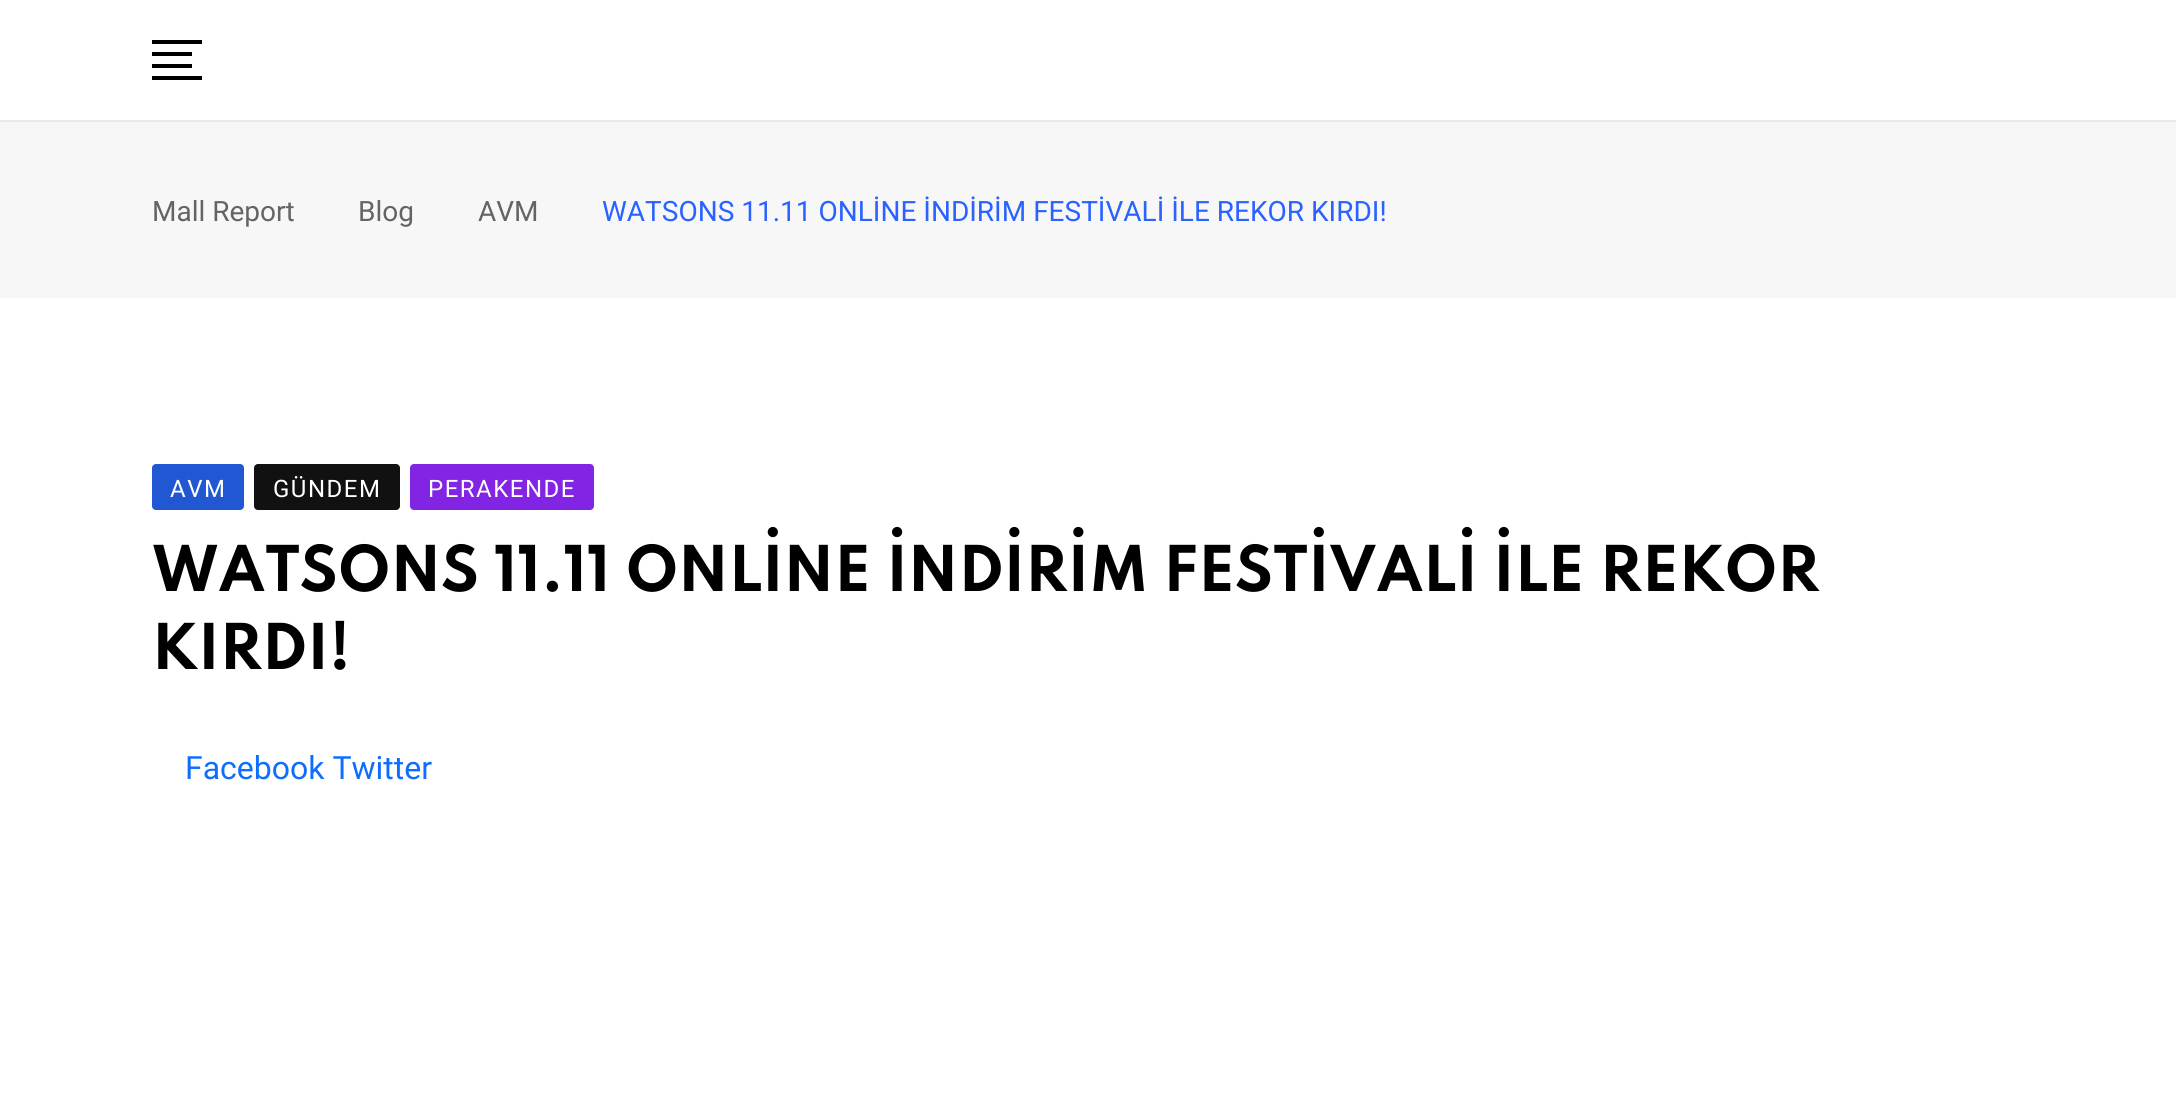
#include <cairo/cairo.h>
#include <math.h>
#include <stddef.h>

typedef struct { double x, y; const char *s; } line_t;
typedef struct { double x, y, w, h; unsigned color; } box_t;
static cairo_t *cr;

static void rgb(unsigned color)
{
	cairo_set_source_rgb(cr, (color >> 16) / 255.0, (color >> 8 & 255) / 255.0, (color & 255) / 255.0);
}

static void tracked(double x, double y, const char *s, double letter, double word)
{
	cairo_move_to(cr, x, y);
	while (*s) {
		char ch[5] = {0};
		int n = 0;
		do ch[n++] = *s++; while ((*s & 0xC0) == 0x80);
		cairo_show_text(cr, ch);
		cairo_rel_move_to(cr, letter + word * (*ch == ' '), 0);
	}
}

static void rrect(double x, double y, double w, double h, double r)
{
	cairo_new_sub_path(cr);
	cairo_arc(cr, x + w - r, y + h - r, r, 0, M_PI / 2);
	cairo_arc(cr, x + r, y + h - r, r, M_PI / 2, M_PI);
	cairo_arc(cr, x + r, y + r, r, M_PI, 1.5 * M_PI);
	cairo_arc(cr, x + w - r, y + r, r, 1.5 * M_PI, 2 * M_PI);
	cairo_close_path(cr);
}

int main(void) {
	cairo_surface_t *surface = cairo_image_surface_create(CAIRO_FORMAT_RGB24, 2176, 1098);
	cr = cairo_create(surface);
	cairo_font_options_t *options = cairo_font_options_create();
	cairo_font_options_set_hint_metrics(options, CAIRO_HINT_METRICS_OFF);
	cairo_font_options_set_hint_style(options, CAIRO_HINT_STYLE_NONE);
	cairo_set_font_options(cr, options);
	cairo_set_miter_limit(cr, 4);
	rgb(0xffffff);
	cairo_paint(cr);
	{
		static const box_t items[] = {
			{0, 120, 2176, 2, 0xe9e9e9},
			{152, 40, 50, 4, 0x000000},
			{152, 52, 40, 4, 0x000000},
			{152, 64, 40, 4, 0x000000},
			{152, 76, 50, 4, 0x000000},
			{0, 122, 2176, 176, 0xf7f7f7},
		};
		for (size_t i = 0; i < sizeof items / sizeof *items; i++) {
			rgb(items[i].color);
			cairo_rectangle(cr, items[i].x, items[i].y, items[i].w, items[i].h);
			cairo_fill(cr);
		}
	}
	rgb(0x2157d3);
	rrect(152, 464, 92, 46, 4);
	cairo_fill(cr);
	rgb(0x111111);
	rrect(254, 464, 146, 46, 4);
	cairo_fill(cr);
	rgb(0x8224e3);
	rrect(410, 464, 184, 46, 4);
	cairo_fill(cr);
	cairo_select_font_face(cr, "Roboto", CAIRO_FONT_SLANT_NORMAL, CAIRO_FONT_WEIGHT_NORMAL);
	cairo_set_font_size(cr, 28);
	rgb(0x646464);
	{
		static const line_t items[] = {
			{152, 221, "Mall Report"},
			{358, 221, "Blog"},
			{478, 221, "AVM"},
		};
		for (size_t i = 0; i < sizeof items / sizeof *items; i++) {
			cairo_move_to(cr, items[i].x, items[i].y);
			cairo_show_text(cr, items[i].s);
		}
	}
	rgb(0x2962ff);
	cairo_move_to(cr, 602, 221);
	cairo_show_text(cr, "WATSONS 11.11 ONLİNE İNDİRİM FESTİVALİ İLE REKOR KIRDI!");
	cairo_set_font_size(cr, 24);
	rgb(0xffffff);
	{
		static const line_t items[] = {
			{170, 497, "AVM"},
			{273, 497, "GÜNDEM"},
			{428, 497, "PERAKENDE"},
		};
		for (size_t i = 0; i < sizeof items / sizeof *items; i++) {
			tracked(items[i].x, items[i].y, items[i].s, 1.5, 0);
		}
	}
	cairo_select_font_face(cr, "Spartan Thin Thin", CAIRO_FONT_SLANT_NORMAL, CAIRO_FONT_WEIGHT_NORMAL);
	cairo_set_font_size(cr, 56);
	rgb(0x000000);
	cairo_move_to(cr, 152, 591);
	cairo_show_text(cr, "WATSONS 11.11 ONLİNE İNDİRİM FESTİVALİ İLE REKOR");
	cairo_move_to(cr, 152, 669);
	cairo_show_text(cr, "KIRDI!");
	cairo_select_font_face(cr, "Roboto", CAIRO_FONT_SLANT_NORMAL, CAIRO_FONT_WEIGHT_NORMAL);
	cairo_set_font_size(cr, 32);
	rgb(0x0d6efd);
	cairo_move_to(cr, 185, 779);
	cairo_show_text(cr, "Facebook Twitter");
	cairo_surface_write_to_png(surface, "page.png");
	cairo_font_options_destroy(options);
	cairo_destroy(cr);
	cairo_surface_destroy(surface);
	return 0;
}
